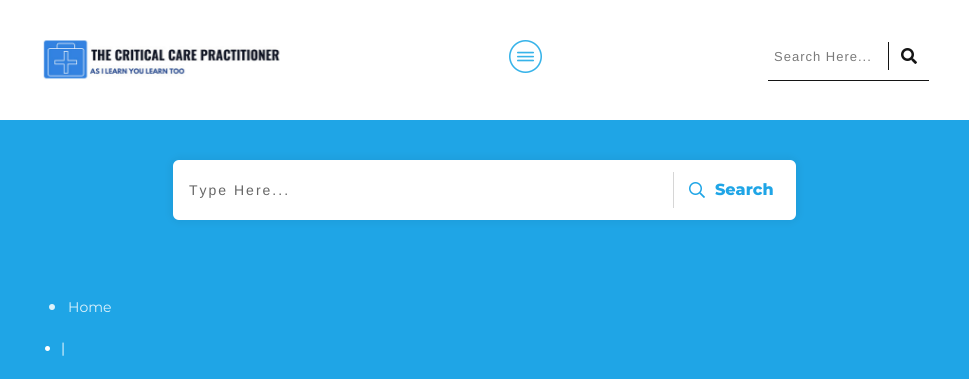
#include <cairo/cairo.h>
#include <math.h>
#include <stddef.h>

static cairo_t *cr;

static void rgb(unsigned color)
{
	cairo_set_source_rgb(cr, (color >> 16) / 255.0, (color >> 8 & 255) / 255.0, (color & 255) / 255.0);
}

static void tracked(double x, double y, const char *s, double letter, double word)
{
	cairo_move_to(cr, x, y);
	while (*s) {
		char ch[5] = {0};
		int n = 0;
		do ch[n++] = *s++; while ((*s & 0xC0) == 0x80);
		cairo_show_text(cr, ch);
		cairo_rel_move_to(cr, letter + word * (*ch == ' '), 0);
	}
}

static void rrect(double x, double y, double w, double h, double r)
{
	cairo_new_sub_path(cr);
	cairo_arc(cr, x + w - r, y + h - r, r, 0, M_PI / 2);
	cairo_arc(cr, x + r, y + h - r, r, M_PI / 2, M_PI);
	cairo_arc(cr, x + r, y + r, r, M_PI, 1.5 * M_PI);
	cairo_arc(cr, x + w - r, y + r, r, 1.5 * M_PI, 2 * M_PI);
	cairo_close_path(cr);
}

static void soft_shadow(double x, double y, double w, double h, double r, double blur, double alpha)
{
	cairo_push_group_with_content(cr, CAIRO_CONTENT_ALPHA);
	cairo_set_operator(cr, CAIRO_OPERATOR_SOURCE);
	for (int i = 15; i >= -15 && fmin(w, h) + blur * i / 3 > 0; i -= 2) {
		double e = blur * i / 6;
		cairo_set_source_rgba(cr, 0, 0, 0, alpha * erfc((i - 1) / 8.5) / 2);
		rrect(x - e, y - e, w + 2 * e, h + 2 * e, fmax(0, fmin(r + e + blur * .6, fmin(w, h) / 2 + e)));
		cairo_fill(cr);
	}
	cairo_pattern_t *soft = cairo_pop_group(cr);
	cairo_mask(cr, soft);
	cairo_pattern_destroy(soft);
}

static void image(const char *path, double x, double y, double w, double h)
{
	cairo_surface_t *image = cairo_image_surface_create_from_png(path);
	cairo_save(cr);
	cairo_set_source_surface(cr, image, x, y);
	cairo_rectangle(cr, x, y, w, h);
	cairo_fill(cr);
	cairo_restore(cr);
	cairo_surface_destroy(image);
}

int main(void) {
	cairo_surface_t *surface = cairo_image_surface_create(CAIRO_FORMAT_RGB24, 969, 379);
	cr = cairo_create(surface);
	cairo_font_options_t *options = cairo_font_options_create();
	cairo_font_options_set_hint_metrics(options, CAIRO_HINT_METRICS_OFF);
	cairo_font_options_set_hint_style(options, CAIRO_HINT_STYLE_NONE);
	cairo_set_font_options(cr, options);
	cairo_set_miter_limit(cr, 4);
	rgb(0xffffff);
	cairo_paint(cr);
	image("img/1.png", 43, 40, 237, 40);
	image("img/2.png", 509, 40, 33, 33);
	rgb(0x141414);
	cairo_rectangle(cr, 768, 80, 161, 1);
	cairo_fill(cr);
	cairo_rectangle(cr, 888, 42, 1, 28);
	cairo_fill(cr);
	image("img/3.png", 901, 48, 16, 16);
	rgb(0x1fa5e6);
	cairo_rectangle(cr, 0, 120, 969, 259);
	cairo_fill(cr);
	rgb(0x000000);
	soft_shadow(173, 160, 623, 60, 6, 5.5, 0.08);
	rgb(0xffffff);
	rrect(173, 160, 623, 60, 6);
	cairo_fill(cr);
	rgb(0xd6d6d6);
	cairo_rectangle(cr, 673, 172, 1, 36);
	cairo_fill(cr);
	image("img/4.png", 689, 182, 16, 16);
	rgb(0xddf2fb);
	cairo_arc(cr, 52, 307, 3, 0, 2 * M_PI);
	cairo_fill(cr);
	rgb(0xffffff);
	cairo_arc(cr, 47.5, 348.5, 2.5, 0, 2 * M_PI);
	cairo_fill(cr);
	cairo_select_font_face(cr, "Liberation Sans", CAIRO_FONT_SLANT_NORMAL, CAIRO_FONT_WEIGHT_NORMAL);
	cairo_set_font_size(cr, 13);
	rgb(0x7a7a7a);
	tracked(774, 61, "Search Here...", 1, 0);
	cairo_set_font_size(cr, 14);
	rgb(0x666666);
	tracked(189, 195, "Type Here...", 2, 0);
	cairo_select_font_face(cr, "Montserrat ExtraBold", CAIRO_FONT_SLANT_NORMAL, CAIRO_FONT_WEIGHT_NORMAL);
	cairo_set_font_size(cr, 16);
	rgb(0x1fa5e6);
	cairo_move_to(cr, 715, 195);
	cairo_show_text(cr, "Search");
	cairo_select_font_face(cr, "Montserrat", CAIRO_FONT_SLANT_NORMAL, CAIRO_FONT_WEIGHT_NORMAL);
	cairo_set_font_size(cr, 14);
	rgb(0xddf2fb);
	cairo_move_to(cr, 68, 312);
	cairo_show_text(cr, "Home");
	rgb(0xffffff);
	cairo_move_to(cr, 61, 353);
	cairo_show_text(cr, "|");
	cairo_surface_write_to_png(surface, "page.png");
	cairo_font_options_destroy(options);
	cairo_destroy(cr);
	cairo_surface_destroy(surface);
	return 0;
}
